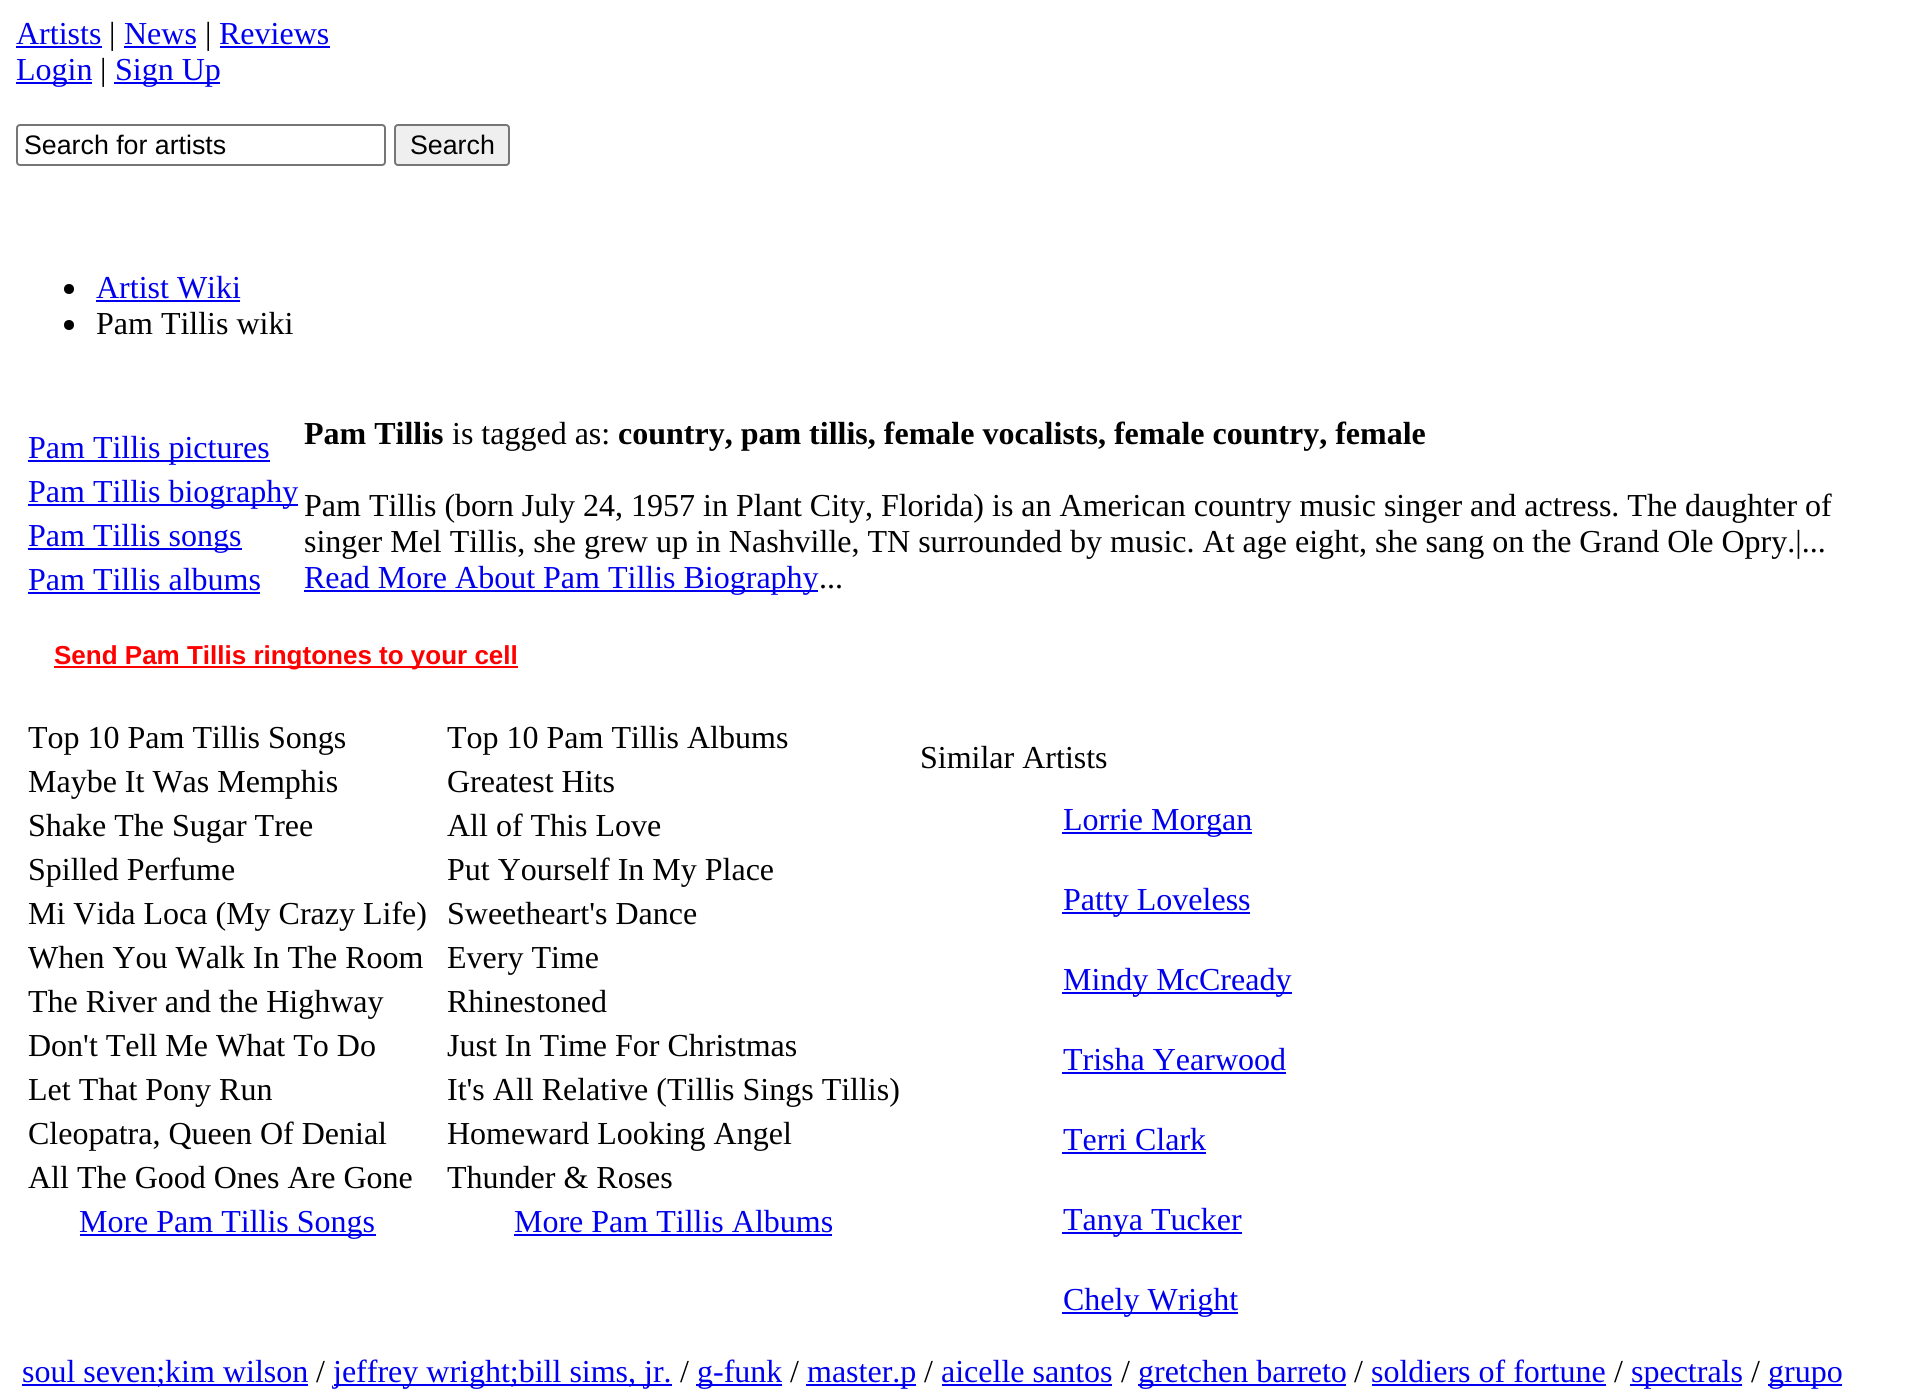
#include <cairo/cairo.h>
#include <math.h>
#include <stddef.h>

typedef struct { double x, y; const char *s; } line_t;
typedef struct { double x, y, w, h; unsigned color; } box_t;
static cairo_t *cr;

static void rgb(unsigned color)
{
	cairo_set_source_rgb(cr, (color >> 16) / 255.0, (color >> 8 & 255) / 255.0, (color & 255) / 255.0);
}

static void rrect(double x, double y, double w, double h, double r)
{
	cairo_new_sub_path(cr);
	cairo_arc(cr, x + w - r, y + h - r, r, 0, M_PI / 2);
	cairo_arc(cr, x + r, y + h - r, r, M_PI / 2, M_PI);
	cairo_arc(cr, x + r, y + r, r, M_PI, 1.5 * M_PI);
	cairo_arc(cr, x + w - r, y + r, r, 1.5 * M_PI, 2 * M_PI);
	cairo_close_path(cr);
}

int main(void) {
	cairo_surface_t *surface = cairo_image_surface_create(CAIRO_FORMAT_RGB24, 1927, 1395);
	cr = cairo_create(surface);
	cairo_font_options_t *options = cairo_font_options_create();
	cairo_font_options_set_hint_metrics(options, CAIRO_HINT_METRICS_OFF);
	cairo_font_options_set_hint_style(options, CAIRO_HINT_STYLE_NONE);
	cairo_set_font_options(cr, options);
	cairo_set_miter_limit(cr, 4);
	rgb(0xffffff);
	cairo_paint(cr);
	{
		static const box_t items[] = {
			{16, 46, 86, 2, 0x0000ee},
			{124, 46, 72, 2, 0x0000ee},
			{220, 46, 110, 2, 0x0000ee},
			{16, 82, 76, 2, 0x0000ee},
			{114, 82, 106, 2, 0x0000ee},
		};
		for (size_t i = 0; i < sizeof items / sizeof *items; i++) {
			rgb(items[i].color);
			cairo_rectangle(cr, items[i].x, items[i].y, items[i].w, items[i].h);
			cairo_fill(cr);
		}
	}
	rrect(17, 125, 368, 40, 3);
	rgb(0x767676);
	cairo_stroke(cr);
	rgb(0xefefef);
	rrect(395, 125, 114, 40, 3);
	cairo_fill_preserve(cr);
	rgb(0x767676);
	cairo_stroke(cr);
	rgb(0x000000);
	cairo_arc(cr, 69, 289, 5, 0, 2 * M_PI);
	cairo_fill(cr);
	rgb(0x0000ee);
	cairo_rectangle(cr, 96, 300, 144, 2);
	cairo_fill(cr);
	rgb(0x000000);
	cairo_arc(cr, 69, 325, 5, 0, 2 * M_PI);
	cairo_fill(cr);
	{
		static const box_t items[] = {
			{28, 460, 242, 2, 0x0000ee},
			{28, 504, 270, 2, 0x0000ee},
			{28, 548, 214, 2, 0x0000ee},
			{28, 592, 232, 2, 0x0000ee},
			{304, 590, 514, 2, 0x0000ee},
			{54, 666, 464, 2, 0xff0000},
			{80, 1234, 296, 2, 0x0000ee},
			{514, 1234, 318, 2, 0x0000ee},
			{1062, 832, 190, 2, 0x0000ee},
			{1062, 912, 188, 2, 0x0000ee},
			{1062, 992, 230, 2, 0x0000ee},
			{1062, 1072, 224, 2, 0x0000ee},
			{1062, 1152, 144, 2, 0x0000ee},
			{1062, 1232, 180, 2, 0x0000ee},
			{1062, 1312, 176, 2, 0x0000ee},
			{22, 1384, 286, 2, 0x0000ee},
			{334, 1384, 338, 2, 0x0000ee},
			{696, 1384, 86, 2, 0x0000ee},
			{806, 1384, 110, 2, 0x0000ee},
			{942, 1384, 170, 2, 0x0000ee},
			{1138, 1384, 208, 2, 0x0000ee},
			{1372, 1384, 234, 2, 0x0000ee},
			{1630, 1384, 112, 2, 0x0000ee},
			{1768, 1384, 74, 2, 0x0000ee},
		};
		for (size_t i = 0; i < sizeof items / sizeof *items; i++) {
			rgb(items[i].color);
			cairo_rectangle(cr, items[i].x, items[i].y, items[i].w, items[i].h);
			cairo_fill(cr);
		}
	}
	cairo_select_font_face(cr, "Liberation Serif", CAIRO_FONT_SLANT_NORMAL, CAIRO_FONT_WEIGHT_NORMAL);
	cairo_set_font_size(cr, 32);
	cairo_move_to(cr, 16, 44);
	cairo_show_text(cr, "Artists");
	rgb(0x000000);
	cairo_move_to(cr, 109, 44);
	cairo_show_text(cr, "|");
	rgb(0x0000ee);
	cairo_move_to(cr, 124, 44);
	cairo_show_text(cr, "News");
	rgb(0x000000);
	cairo_move_to(cr, 205, 44);
	cairo_show_text(cr, "|");
	rgb(0x0000ee);
	cairo_move_to(cr, 219, 44);
	cairo_show_text(cr, "Reviews");
	cairo_move_to(cr, 16, 80);
	cairo_show_text(cr, "Login");
	rgb(0x000000);
	cairo_move_to(cr, 100, 80);
	cairo_show_text(cr, "|");
	rgb(0x0000ee);
	cairo_move_to(cr, 115, 80);
	cairo_show_text(cr, "Sign Up");
	cairo_select_font_face(cr, "Liberation Sans", CAIRO_FONT_SLANT_NORMAL, CAIRO_FONT_WEIGHT_NORMAL);
	cairo_set_font_size(cr, 26.75);
	rgb(0x000000);
	cairo_move_to(cr, 24, 154);
	cairo_show_text(cr, "Search for artists");
	cairo_move_to(cr, 410, 154);
	cairo_show_text(cr, "Search");
	cairo_select_font_face(cr, "Liberation Serif", CAIRO_FONT_SLANT_NORMAL, CAIRO_FONT_WEIGHT_NORMAL);
	cairo_set_font_size(cr, 32);
	rgb(0x0000ee);
	cairo_move_to(cr, 96, 298);
	cairo_show_text(cr, "Artist Wiki");
	rgb(0x000000);
	cairo_move_to(cr, 96, 334);
	cairo_show_text(cr, "Pam Tillis wiki");
	rgb(0x0000ee);
	{
		static const line_t items[] = {
			{28, 458, "Pam Tillis pictures"},
			{28, 502, "Pam Tillis biography"},
			{28, 546, "Pam Tillis songs"},
			{28, 590, "Pam Tillis albums"},
		};
		for (size_t i = 0; i < sizeof items / sizeof *items; i++) {
			cairo_move_to(cr, items[i].x, items[i].y);
			cairo_show_text(cr, items[i].s);
		}
	}
	cairo_select_font_face(cr, "Liberation Serif", CAIRO_FONT_SLANT_NORMAL, CAIRO_FONT_WEIGHT_BOLD);
	rgb(0x000000);
	cairo_move_to(cr, 304, 444);
	cairo_show_text(cr, "Pam Tillis");
	cairo_select_font_face(cr, "Liberation Serif", CAIRO_FONT_SLANT_NORMAL, CAIRO_FONT_WEIGHT_NORMAL);
	cairo_move_to(cr, 452, 444);
	cairo_show_text(cr, "is tagged as:");
	cairo_select_font_face(cr, "Liberation Serif", CAIRO_FONT_SLANT_NORMAL, CAIRO_FONT_WEIGHT_BOLD);
	cairo_move_to(cr, 618, 444);
	cairo_show_text(cr, "country, pam tillis, female vocalists, female country, female");
	cairo_select_font_face(cr, "Liberation Serif", CAIRO_FONT_SLANT_NORMAL, CAIRO_FONT_WEIGHT_NORMAL);
	cairo_move_to(cr, 304, 516);
	cairo_show_text(cr, "Pam Tillis (born July 24, 1957 in Plant City, Florida) is an American country music singer and actress. The daughter of");
	cairo_move_to(cr, 304, 552);
	cairo_show_text(cr, "singer Mel Tillis, she grew up in Nashville, TN surrounded by music. At age eight, she sang on the Grand Ole Opry.|...");
	rgb(0x0000ee);
	cairo_move_to(cr, 304, 588);
	cairo_show_text(cr, "Read More About Pam Tillis Biography");
	rgb(0x000000);
	cairo_move_to(cr, 819, 588);
	cairo_show_text(cr, "...");
	cairo_select_font_face(cr, "Liberation Sans", CAIRO_FONT_SLANT_NORMAL, CAIRO_FONT_WEIGHT_BOLD);
	cairo_set_font_size(cr, 26);
	rgb(0xff0000);
	cairo_move_to(cr, 54, 664);
	cairo_show_text(cr, "Send Pam Tillis ringtones to your cell");
	cairo_select_font_face(cr, "Liberation Serif", CAIRO_FONT_SLANT_NORMAL, CAIRO_FONT_WEIGHT_NORMAL);
	cairo_set_font_size(cr, 32);
	rgb(0x000000);
	{
		static const line_t items[] = {
			{28, 748, "Top 10 Pam Tillis Songs"},
			{28, 792, "Maybe It Was Memphis"},
			{28, 836, "Shake The Sugar Tree"},
			{28, 880, "Spilled Perfume"},
			{28, 924, "Mi Vida Loca (My Crazy Life)"},
			{28, 968, "When You Walk In The Room"},
			{28, 1012, "The River and the Highway"},
			{28, 1056, "Don't Tell Me What To Do"},
			{28, 1100, "Let That Pony Run"},
			{28, 1144, "Cleopatra, Queen Of Denial"},
			{28, 1188, "All The Good Ones Are Gone"},
		};
		for (size_t i = 0; i < sizeof items / sizeof *items; i++) {
			cairo_move_to(cr, items[i].x, items[i].y);
			cairo_show_text(cr, items[i].s);
		}
	}
	rgb(0x0000ee);
	cairo_move_to(cr, 79, 1232);
	cairo_show_text(cr, "More Pam Tillis Songs");
	rgb(0x000000);
	{
		static const line_t items[] = {
			{447, 748, "Top 10 Pam Tillis Albums"},
			{447, 792, "Greatest Hits"},
			{447, 836, "All of This Love"},
			{447, 880, "Put Yourself In My Place"},
			{447, 924, "Sweetheart's Dance"},
			{447, 968, "Every Time"},
			{447, 1012, "Rhinestoned"},
			{447, 1056, "Just In Time For Christmas"},
			{447, 1100, "It's All Relative (Tillis Sings Tillis)"},
			{447, 1144, "Homeward Looking Angel"},
			{447, 1188, "Thunder & Roses"},
		};
		for (size_t i = 0; i < sizeof items / sizeof *items; i++) {
			cairo_move_to(cr, items[i].x, items[i].y);
			cairo_show_text(cr, items[i].s);
		}
	}
	rgb(0x0000ee);
	cairo_move_to(cr, 514, 1232);
	cairo_show_text(cr, "More Pam Tillis Albums");
	rgb(0x000000);
	cairo_move_to(cr, 920, 768);
	cairo_show_text(cr, "Similar Artists");
	rgb(0x0000ee);
	{
		static const line_t items[] = {
			{1063, 830, "Lorrie Morgan"},
			{1063, 910, "Patty Loveless"},
			{1063, 990, "Mindy McCready"},
			{1063, 1070, "Trisha Yearwood"},
			{1063, 1150, "Terri Clark"},
			{1063, 1230, "Tanya Tucker"},
			{1063, 1310, "Chely Wright"},
			{22, 1382, "soul seven;kim wilson"},
		};
		for (size_t i = 0; i < sizeof items / sizeof *items; i++) {
			cairo_move_to(cr, items[i].x, items[i].y);
			cairo_show_text(cr, items[i].s);
		}
	}
	rgb(0x000000);
	cairo_move_to(cr, 316, 1382);
	cairo_show_text(cr, "/");
	rgb(0x0000ee);
	cairo_move_to(cr, 333, 1382);
	cairo_show_text(cr, "jeffrey wright;bill sims, jr.");
	rgb(0x000000);
	cairo_move_to(cr, 680, 1382);
	cairo_show_text(cr, "/");
	rgb(0x0000ee);
	cairo_move_to(cr, 697, 1382);
	cairo_show_text(cr, "g-funk");
	rgb(0x000000);
	cairo_move_to(cr, 790, 1382);
	cairo_show_text(cr, "/");
	rgb(0x0000ee);
	cairo_move_to(cr, 807, 1382);
	cairo_show_text(cr, "master.p");
	rgb(0x000000);
	cairo_move_to(cr, 924, 1382);
	cairo_show_text(cr, "/");
	rgb(0x0000ee);
	cairo_move_to(cr, 941, 1382);
	cairo_show_text(cr, "aicelle santos");
	rgb(0x000000);
	cairo_move_to(cr, 1121, 1382);
	cairo_show_text(cr, "/");
	rgb(0x0000ee);
	cairo_move_to(cr, 1138, 1382);
	cairo_show_text(cr, "gretchen barreto");
	rgb(0x000000);
	cairo_move_to(cr, 1354, 1382);
	cairo_show_text(cr, "/");
	rgb(0x0000ee);
	cairo_move_to(cr, 1371, 1382);
	cairo_show_text(cr, "soldiers of fortune");
	rgb(0x000000);
	cairo_move_to(cr, 1614, 1382);
	cairo_show_text(cr, "/");
	rgb(0x0000ee);
	cairo_move_to(cr, 1631, 1382);
	cairo_show_text(cr, "spectrals");
	rgb(0x000000);
	cairo_move_to(cr, 1751, 1382);
	cairo_show_text(cr, "/");
	rgb(0x0000ee);
	cairo_move_to(cr, 1768, 1382);
	cairo_show_text(cr, "grupo");
	cairo_surface_write_to_png(surface, "page.png");
	cairo_font_options_destroy(options);
	cairo_destroy(cr);
	cairo_surface_destroy(surface);
	return 0;
}
